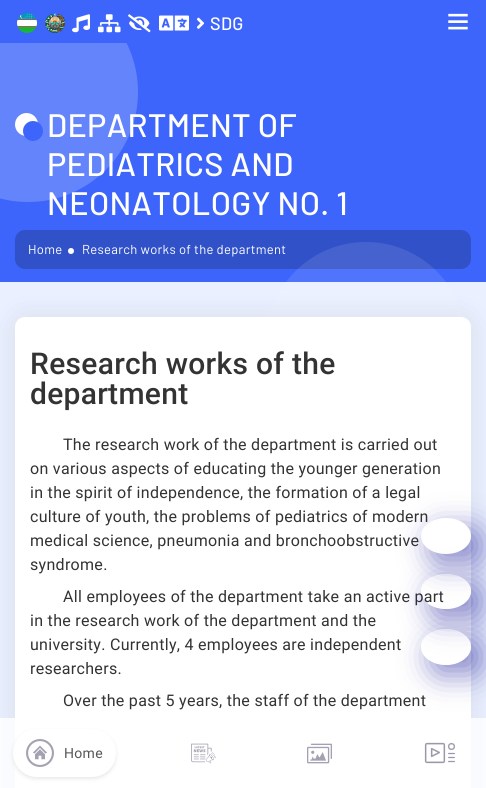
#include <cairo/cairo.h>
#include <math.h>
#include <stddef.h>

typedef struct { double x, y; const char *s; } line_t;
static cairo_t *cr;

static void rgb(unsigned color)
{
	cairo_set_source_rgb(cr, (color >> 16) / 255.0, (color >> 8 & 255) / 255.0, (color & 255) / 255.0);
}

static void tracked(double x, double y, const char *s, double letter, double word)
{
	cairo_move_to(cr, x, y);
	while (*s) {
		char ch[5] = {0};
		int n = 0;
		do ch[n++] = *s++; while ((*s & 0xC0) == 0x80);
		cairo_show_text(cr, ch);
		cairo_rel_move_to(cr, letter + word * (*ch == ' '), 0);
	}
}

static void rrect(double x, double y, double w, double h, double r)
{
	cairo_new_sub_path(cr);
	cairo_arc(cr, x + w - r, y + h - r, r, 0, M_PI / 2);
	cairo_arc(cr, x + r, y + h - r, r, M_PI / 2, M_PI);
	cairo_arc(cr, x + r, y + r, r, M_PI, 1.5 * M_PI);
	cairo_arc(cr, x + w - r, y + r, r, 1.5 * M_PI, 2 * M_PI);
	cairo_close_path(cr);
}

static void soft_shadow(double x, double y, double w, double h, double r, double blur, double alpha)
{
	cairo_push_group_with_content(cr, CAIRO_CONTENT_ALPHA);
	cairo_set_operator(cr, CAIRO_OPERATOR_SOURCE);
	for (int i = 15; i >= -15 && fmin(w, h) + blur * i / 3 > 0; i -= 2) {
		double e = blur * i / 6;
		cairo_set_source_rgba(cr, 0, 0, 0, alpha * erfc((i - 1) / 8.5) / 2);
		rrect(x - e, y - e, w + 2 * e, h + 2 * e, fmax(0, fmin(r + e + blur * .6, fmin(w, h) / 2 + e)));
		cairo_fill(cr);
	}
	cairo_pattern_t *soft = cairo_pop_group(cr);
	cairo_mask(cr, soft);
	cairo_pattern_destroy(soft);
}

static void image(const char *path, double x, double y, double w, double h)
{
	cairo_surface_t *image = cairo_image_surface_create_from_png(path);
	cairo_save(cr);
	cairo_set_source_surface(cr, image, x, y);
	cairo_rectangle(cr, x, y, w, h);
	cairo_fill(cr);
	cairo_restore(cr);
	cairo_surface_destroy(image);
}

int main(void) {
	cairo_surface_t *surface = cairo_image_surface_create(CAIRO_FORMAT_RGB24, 486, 788);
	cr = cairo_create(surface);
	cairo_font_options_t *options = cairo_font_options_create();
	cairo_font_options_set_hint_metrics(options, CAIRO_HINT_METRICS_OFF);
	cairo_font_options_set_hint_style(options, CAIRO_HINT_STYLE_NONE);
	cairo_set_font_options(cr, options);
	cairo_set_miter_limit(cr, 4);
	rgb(0xeaf0ff);
	cairo_paint(cr);
	rgb(0x3d65fb);
	cairo_rectangle(cr, 0, 43, 486, 239);
	cairo_fill(cr);
	cairo_set_source_rgba(cr, 1, 1, 1, 0.2);
	cairo_arc(cr, 28, 92, 110, 0, 2 * M_PI);
	cairo_fill(cr);
	rgb(0x3d65fb);
	cairo_rectangle(cr, 0, 0, 486, 43);
	cairo_fill(cr);
	image("img/1.png", 17, 13, 20, 20);
	image("img/2.png", 45, 13, 20, 20);
	image("img/3.png", 72, 14, 18, 19);
	image("img/4.png", 98, 14, 23, 19);
	image("img/5.png", 128, 14, 23, 19);
	image("img/6.png", 159, 15, 30, 16);
	image("img/7.png", 196, 17, 9, 12);
	image("img/8.png", 448, 13, 20, 17);
	rgb(0xffffff);
	cairo_arc(cr, 26.5, 124.5, 11.5, 0, 2 * M_PI);
	cairo_fill(cr);
	rgb(0x3d65fb);
	cairo_arc(cr, 33, 131, 10, 0, 2 * M_PI);
	cairo_fill(cr);
	rgb(0x3151c9);
	rrect(15, 230, 456, 39, 10);
	cairo_fill(cr);
	rgb(0xffffff);
	cairo_arc(cr, 71, 251, 3, 0, 2 * M_PI);
	cairo_fill(cr);
	cairo_set_source_rgba(cr, 1, 1, 1, 0.1);
	cairo_arc(cr, 366, 342, 100, 0, 2 * M_PI);
	cairo_fill(cr);
	rgb(0x000000);
	soft_shadow(15, 317, 456, 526, 10, 15, 0.08);
	rgb(0xffffff);
	rrect(15, 317, 456, 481, 10);
	cairo_fill(cr);
	rgb(0x00008e);
	soft_shadow(431, 528, 50, 36, 18, 15, 0.45);
	cairo_save(cr);
	cairo_set_fill_rule(cr, CAIRO_FILL_RULE_EVEN_ODD);
	cairo_new_path(cr);
	cairo_move_to(cr, 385, 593);
	cairo_line_to(cr, 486, 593);
	cairo_line_to(cr, 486, 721);
	cairo_line_to(cr, 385, 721);
	cairo_close_path(cr);
	cairo_move_to(cr, 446, 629);
	cairo_curve_to(cr, 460, 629, 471, 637, 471, 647);
	cairo_curve_to(cr, 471, 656.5, 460, 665, 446, 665);
	cairo_curve_to(cr, 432, 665, 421, 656.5, 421, 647);
	cairo_curve_to(cr, 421, 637, 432, 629, 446, 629);
	cairo_close_path(cr);
	cairo_clip(cr);
	soft_shadow(431, 639, 50, 36, 18, 15, 0.45);
	cairo_restore(cr);
	cairo_set_source_rgba(cr, 1, 1, 1, 0.82);
	cairo_rectangle(cr, 0, 718, 486, 70);
	cairo_fill(cr);
	rgb(0x000000);
	soft_shadow(13, 731, 103, 48, 24, 2, 0.09);
	rgb(0xffffff);
	rrect(13, 729, 103, 48, 24);
	cairo_fill(cr);
	image("img/9.png", 26, 739, 28, 28);
	image("img/10.png", 191, 743, 25, 21);
	image("img/11.png", 307, 743, 25, 21);
	image("img/12.png", 424, 742, 32, 22);
	cairo_select_font_face(cr, "Barlow Medium", CAIRO_FONT_SLANT_NORMAL, CAIRO_FONT_WEIGHT_NORMAL);
	cairo_set_font_size(cr, 18);
	tracked(210, 30, "SDG", 0.3, 0);
	cairo_set_font_size(cr, 32.5);
	{
		static const line_t items[] = {
			{47, 137, "DEPARTMENT OF"},
			{47, 176, "PEDIATRICS AND"},
			{47, 215, "NEONATOLOGY NO. 1"},
		};
		for (size_t i = 0; i < sizeof items / sizeof *items; i++) {
			tracked(items[i].x, items[i].y, items[i].s, 0.3, 0);
		}
	}
	cairo_select_font_face(cr, "Barlow", CAIRO_FONT_SLANT_NORMAL, CAIRO_FONT_WEIGHT_NORMAL);
	cairo_set_font_size(cr, 13);
	tracked(28, 254, "Home", 0.3, 0);
	tracked(82, 254, "Research works of the department", 0.3, 0);
	cairo_select_font_face(cr, "Roboto Medium", CAIRO_FONT_SLANT_NORMAL, CAIRO_FONT_WEIGHT_NORMAL);
	cairo_set_font_size(cr, 30);
	rgb(0x333333);
	tracked(30, 374, "Research works of the", 0.3, 0);
	tracked(30, 404, "department", 0.3, 0);
	cairo_select_font_face(cr, "Roboto", CAIRO_FONT_SLANT_NORMAL, CAIRO_FONT_WEIGHT_NORMAL);
	cairo_set_font_size(cr, 16);
	{
		static const line_t items[] = {
			{63, 450, "The research work of the department is carried out"},
			{30, 474, "on various aspects of educating the younger generation"},
			{30, 498, "in the spirit of independence, the formation of a legal"},
			{30, 522, "culture of youth, the problems of pediatrics of modern"},
			{30, 546, "medical science, pneumonia and bronchoobstructive"},
			{30, 570, "syndrome."},
			{63, 602, "All employees of the department take an active part"},
			{30, 626, "in the research work of the department and the"},
			{30, 650, "university. Currently, 4 employees are independent"},
			{30, 674, "researchers."},
			{63, 706, "Over the past 5 years, the staff of the department"},
		};
		for (size_t i = 0; i < sizeof items / sizeof *items; i++) {
			tracked(items[i].x, items[i].y, items[i].s, 0.3, 0);
		}
	}
	rgb(0xffffff);
	cairo_new_path(cr);
	cairo_move_to(cr, 446, 518);
	cairo_curve_to(cr, 460, 518, 471, 526, 471, 536);
	cairo_curve_to(cr, 471, 546, 460, 554, 446, 554);
	cairo_curve_to(cr, 432, 554, 421, 546, 421, 536);
	cairo_curve_to(cr, 421, 526, 432, 518, 446, 518);
	cairo_close_path(cr);
	cairo_fill(cr);
	cairo_save(cr);
	cairo_set_fill_rule(cr, CAIRO_FILL_RULE_EVEN_ODD);
	cairo_new_path(cr);
	cairo_move_to(cr, 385, 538);
	cairo_line_to(cr, 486, 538);
	cairo_line_to(cr, 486, 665);
	cairo_line_to(cr, 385, 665);
	cairo_close_path(cr);
	cairo_move_to(cr, 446, 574);
	cairo_curve_to(cr, 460, 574, 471, 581.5, 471, 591);
	cairo_curve_to(cr, 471, 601, 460, 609, 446, 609);
	cairo_curve_to(cr, 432, 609, 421, 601, 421, 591);
	cairo_curve_to(cr, 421, 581.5, 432, 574, 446, 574);
	cairo_close_path(cr);
	cairo_clip(cr);
	rgb(0x00008e);
	soft_shadow(431, 584, 50, 35, 17.5, 15, 0.45);
	cairo_restore(cr);
	cairo_set_font_size(cr, 14);
	rgb(0x555555);
	tracked(64, 758, "Home", 0.3, 0);
	cairo_surface_write_to_png(surface, "page.png");
	cairo_font_options_destroy(options);
	cairo_destroy(cr);
	cairo_surface_destroy(surface);
	return 0;
}
